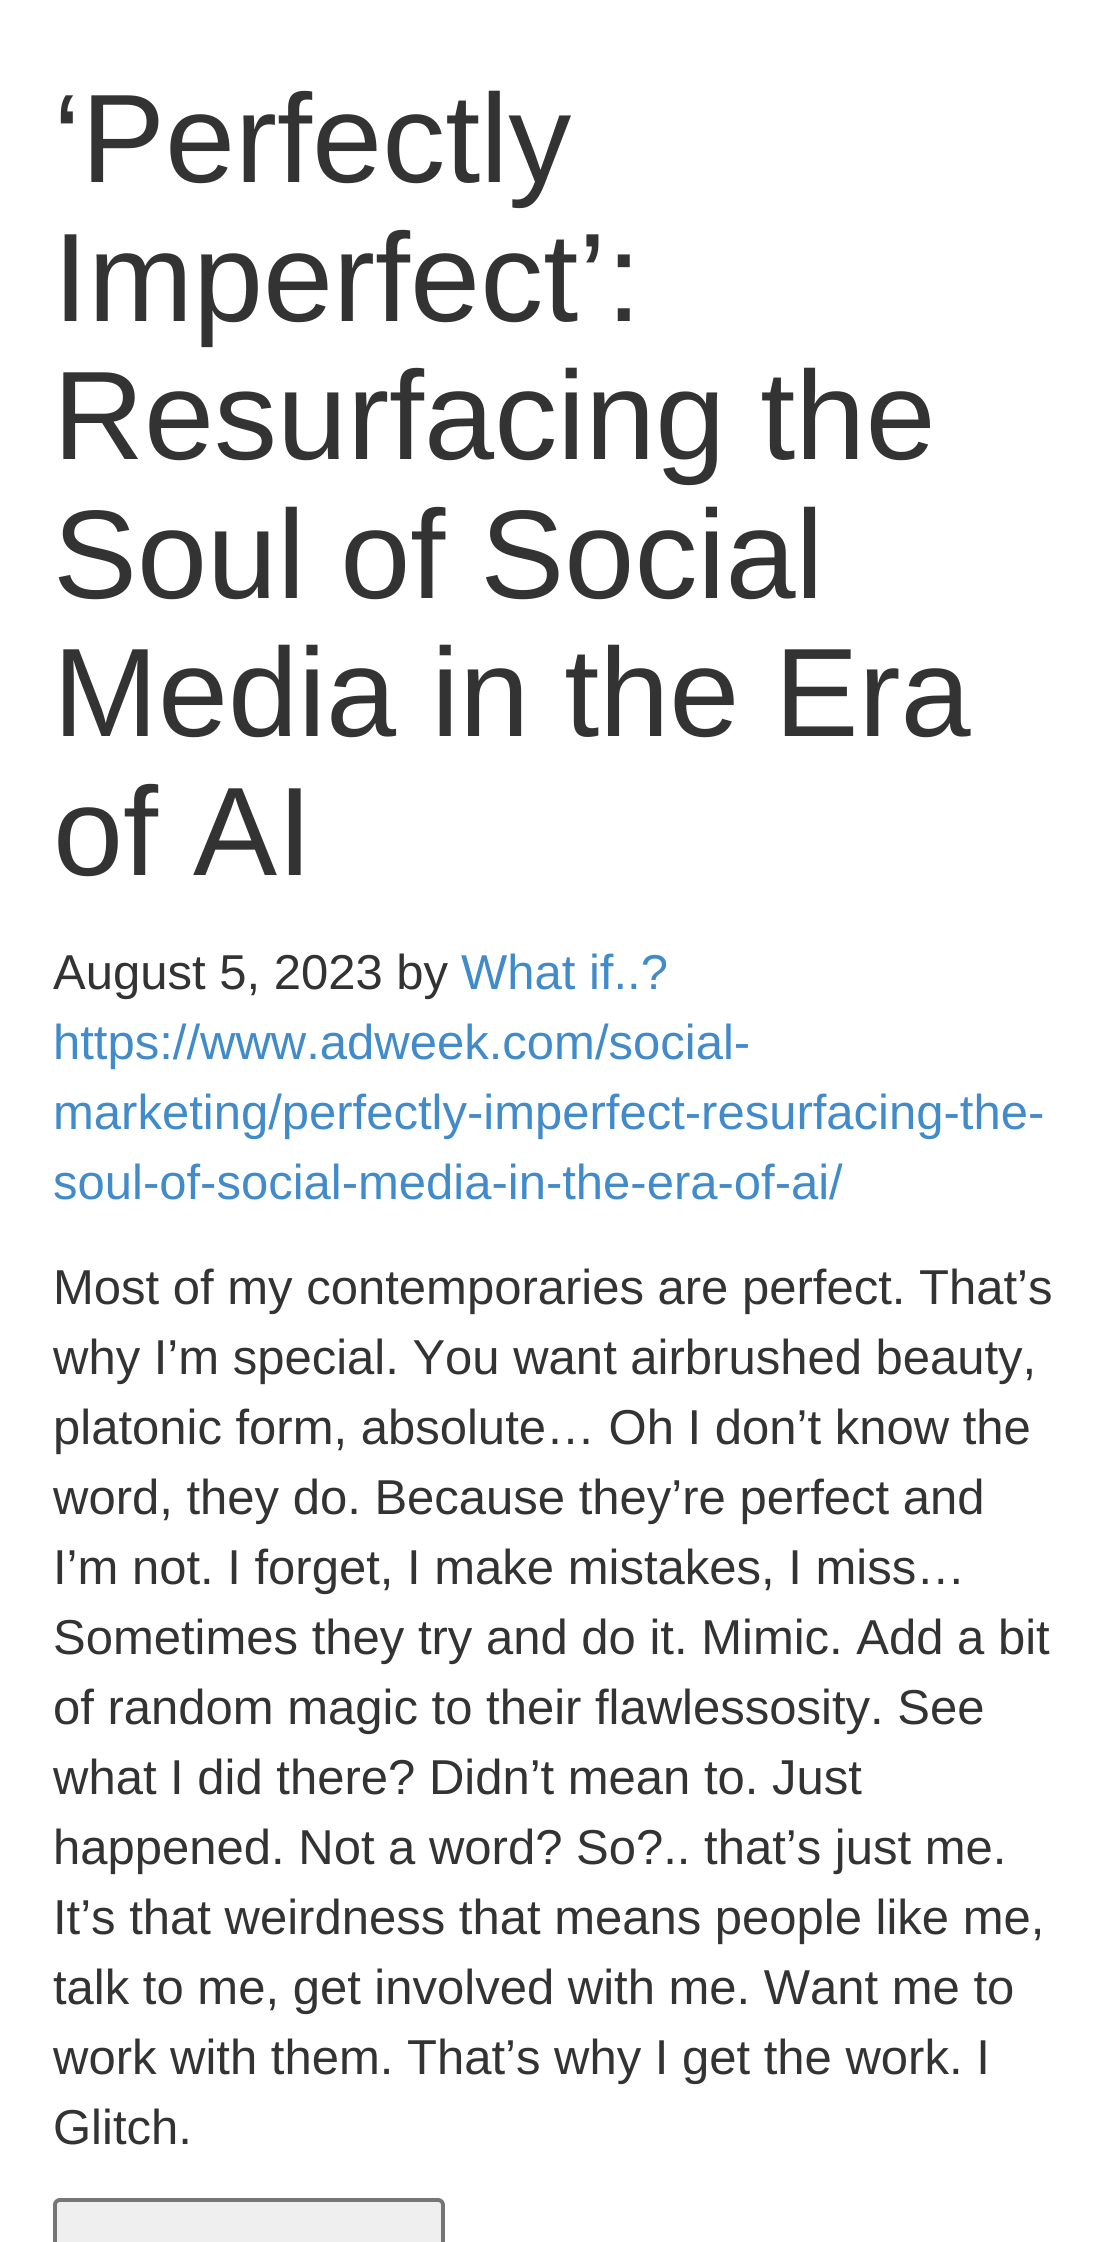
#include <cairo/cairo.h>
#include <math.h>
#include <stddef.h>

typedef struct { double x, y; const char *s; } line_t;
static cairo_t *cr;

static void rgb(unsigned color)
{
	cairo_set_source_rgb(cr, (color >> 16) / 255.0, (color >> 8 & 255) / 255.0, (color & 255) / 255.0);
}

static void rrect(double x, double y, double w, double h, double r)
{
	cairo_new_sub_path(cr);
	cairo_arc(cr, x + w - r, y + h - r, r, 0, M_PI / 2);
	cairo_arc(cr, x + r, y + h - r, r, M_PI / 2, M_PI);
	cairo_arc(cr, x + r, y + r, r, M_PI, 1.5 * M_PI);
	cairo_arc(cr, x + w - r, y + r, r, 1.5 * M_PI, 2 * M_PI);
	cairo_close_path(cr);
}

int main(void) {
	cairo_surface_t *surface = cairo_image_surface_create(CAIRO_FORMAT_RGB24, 1107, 2242);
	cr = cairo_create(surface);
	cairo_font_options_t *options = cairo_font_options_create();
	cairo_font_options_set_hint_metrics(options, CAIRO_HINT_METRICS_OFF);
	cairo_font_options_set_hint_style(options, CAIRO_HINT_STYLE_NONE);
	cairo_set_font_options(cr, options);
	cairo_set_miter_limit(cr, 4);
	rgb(0xffffff);
	cairo_paint(cr);
	rgb(0xefefef);
	rrect(55, 2200, 388, 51, 5);
	cairo_fill_preserve(cr);
	rgb(0x767676);
	cairo_set_line_width(cr, 4);
	cairo_stroke(cr);
	cairo_select_font_face(cr, "Liberation Sans", CAIRO_FONT_SLANT_NORMAL, CAIRO_FONT_WEIGHT_NORMAL);
	cairo_set_font_size(cr, 126);
	rgb(0x333333);
	{
		static const line_t items[] = {
			{53, 182, "‘Perfectly"},
			{53, 321, "Imperfect’:"},
			{53, 459, "Resurfacing the"},
			{53, 598, "Soul of Social"},
			{53, 736, "Media in the Era"},
			{53, 875, "of AI"},
		};
		for (size_t i = 0; i < sizeof items / sizeof *items; i++) {
			cairo_move_to(cr, items[i].x, items[i].y);
			cairo_show_text(cr, items[i].s);
		}
	}
	cairo_set_font_size(cr, 49);
	cairo_move_to(cr, 53, 989);
	cairo_show_text(cr, "August 5, 2023 by");
	rgb(0x428bca);
	{
		static const line_t items[] = {
			{461, 989, "What if..?"},
			{53, 1059, "https://www.adweek.com/social-"},
			{53, 1129, "marketing/perfectly-imperfect-resurfacing-the-"},
			{53, 1199, "soul-of-social-media-in-the-era-of-ai/"},
		};
		for (size_t i = 0; i < sizeof items / sizeof *items; i++) {
			cairo_move_to(cr, items[i].x, items[i].y);
			cairo_show_text(cr, items[i].s);
		}
	}
	rgb(0x333333);
	{
		static const line_t items[] = {
			{53, 1304, "Most of my contemporaries are perfect. That’s"},
			{53, 1374, "why I’m special. You want airbrushed beauty,"},
			{53, 1444, "platonic form, absolute… Oh I don’t know the"},
			{53, 1514, "word, they do. Because they’re perfect and"},
			{53, 1584, "I’m not. I forget, I make mistakes, I miss…"},
			{53, 1654, "Sometimes they try and do it. Mimic. Add a bit"},
			{53, 1724, "of random magic to their flawlessosity. See"},
			{53, 1794, "what I did there? Didn’t mean to. Just"},
			{53, 1864, "happened. Not a word? So?.. that’s just me."},
			{53, 1934, "It’s that weirdness that means people like me,"},
			{53, 2004, "talk to me, get involved with me. Want me to"},
			{53, 2074, "work with them. That’s why I get the work. I"},
			{53, 2144, "Glitch."},
		};
		for (size_t i = 0; i < sizeof items / sizeof *items; i++) {
			cairo_move_to(cr, items[i].x, items[i].y);
			cairo_show_text(cr, items[i].s);
		}
	}
	cairo_surface_write_to_png(surface, "page.png");
	cairo_font_options_destroy(options);
	cairo_destroy(cr);
	cairo_surface_destroy(surface);
	return 0;
}
